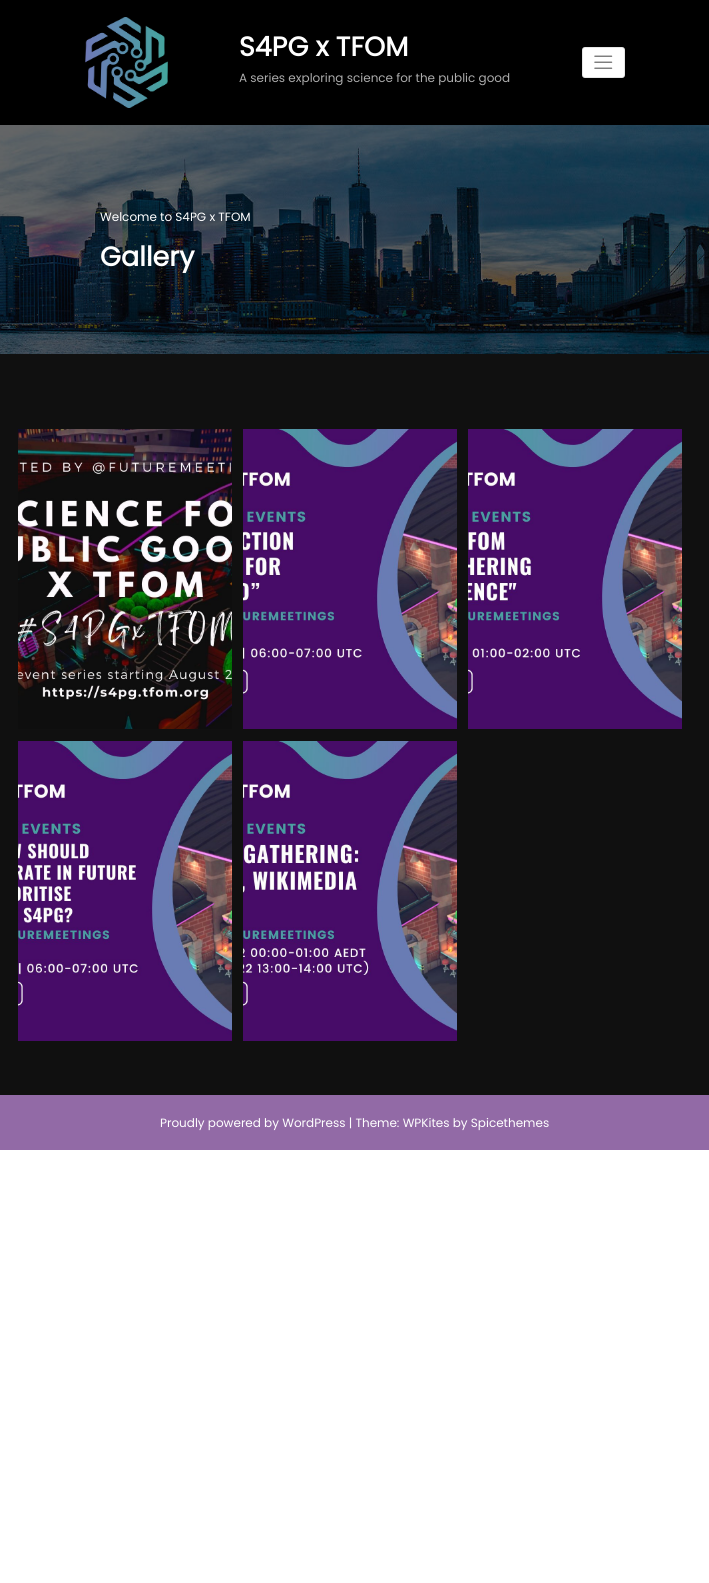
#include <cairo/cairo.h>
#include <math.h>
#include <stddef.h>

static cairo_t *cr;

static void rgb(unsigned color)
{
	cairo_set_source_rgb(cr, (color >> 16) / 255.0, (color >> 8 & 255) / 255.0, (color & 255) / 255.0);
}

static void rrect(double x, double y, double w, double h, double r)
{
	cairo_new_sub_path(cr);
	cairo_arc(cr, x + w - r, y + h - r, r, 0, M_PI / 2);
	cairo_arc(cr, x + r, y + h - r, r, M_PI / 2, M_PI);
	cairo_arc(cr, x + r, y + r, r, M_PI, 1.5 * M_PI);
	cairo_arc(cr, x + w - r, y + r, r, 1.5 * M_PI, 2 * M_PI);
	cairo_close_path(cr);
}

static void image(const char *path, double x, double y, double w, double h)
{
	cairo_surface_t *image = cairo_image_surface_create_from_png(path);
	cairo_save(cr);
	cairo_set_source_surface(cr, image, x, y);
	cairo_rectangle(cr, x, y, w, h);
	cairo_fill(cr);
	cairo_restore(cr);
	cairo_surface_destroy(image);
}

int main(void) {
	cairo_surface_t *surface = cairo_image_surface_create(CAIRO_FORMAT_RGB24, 709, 1583);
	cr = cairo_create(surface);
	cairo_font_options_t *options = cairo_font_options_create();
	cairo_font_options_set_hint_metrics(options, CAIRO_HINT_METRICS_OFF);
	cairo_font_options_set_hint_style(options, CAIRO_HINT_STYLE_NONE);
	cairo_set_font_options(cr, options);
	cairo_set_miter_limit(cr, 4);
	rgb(0xffffff);
	cairo_paint(cr);
	rgb(0x000000);
	cairo_rectangle(cr, 0, 0, 709, 125);
	cairo_fill(cr);
	image("img/1.png", 85, 17, 83, 91);
	rgb(0xffffff);
	rrect(582, 47, 43, 31, 3);
	cairo_fill(cr);
	rrect(582.5, 47.5, 42, 30, 2.5);
	cairo_set_source_rgba(cr, 0, 0, 0, 0.1);
	cairo_set_line_width(cr, 1);
	cairo_stroke(cr);
	image("img/2.png", 594, 55, 19, 14);
	image("img/3.png", 0, 125, 709, 229);
	rgb(0x101010);
	cairo_rectangle(cr, 0, 354, 709, 741);
	cairo_fill(cr);
	image("img/4.png", 18, 429, 214, 300);
	image("img/5.png", 243, 429, 214, 300);
	image("img/6.png", 468, 429, 214, 300);
	image("img/7.png", 18, 741, 214, 300);
	image("img/8.png", 243, 741, 214, 300);
	rgb(0x926aa6);
	cairo_rectangle(cr, 0, 1095, 709, 55);
	cairo_fill(cr);
	cairo_select_font_face(cr, "Poppins", CAIRO_FONT_SLANT_NORMAL, CAIRO_FONT_WEIGHT_BOLD);
	cairo_set_font_size(cr, 27);
	rgb(0xffffff);
	cairo_move_to(cr, 239, 56);
	cairo_show_text(cr, "S4PG x TFOM");
	cairo_select_font_face(cr, "Poppins", CAIRO_FONT_SLANT_NORMAL, CAIRO_FONT_WEIGHT_NORMAL);
	cairo_set_font_size(cr, 12);
	rgb(0xacacac);
	cairo_move_to(cr, 239, 82);
	cairo_show_text(cr, "A series exploring science for the public good");
	rgb(0xffffff);
	cairo_move_to(cr, 100, 221);
	cairo_show_text(cr, "Welcome to S4PG x TFOM");
	cairo_select_font_face(cr, "Poppins", CAIRO_FONT_SLANT_NORMAL, CAIRO_FONT_WEIGHT_BOLD);
	cairo_set_font_size(cr, 27);
	cairo_move_to(cr, 100, 266);
	cairo_show_text(cr, "Gallery");
	cairo_select_font_face(cr, "Poppins", CAIRO_FONT_SLANT_NORMAL, CAIRO_FONT_WEIGHT_NORMAL);
	cairo_set_font_size(cr, 12);
	cairo_move_to(cr, 160, 1127);
	cairo_show_text(cr, "Proudly powered by WordPress | Theme: WPKites by Spicethemes");
	cairo_surface_write_to_png(surface, "page.png");
	cairo_font_options_destroy(options);
	cairo_destroy(cr);
	cairo_surface_destroy(surface);
	return 0;
}
